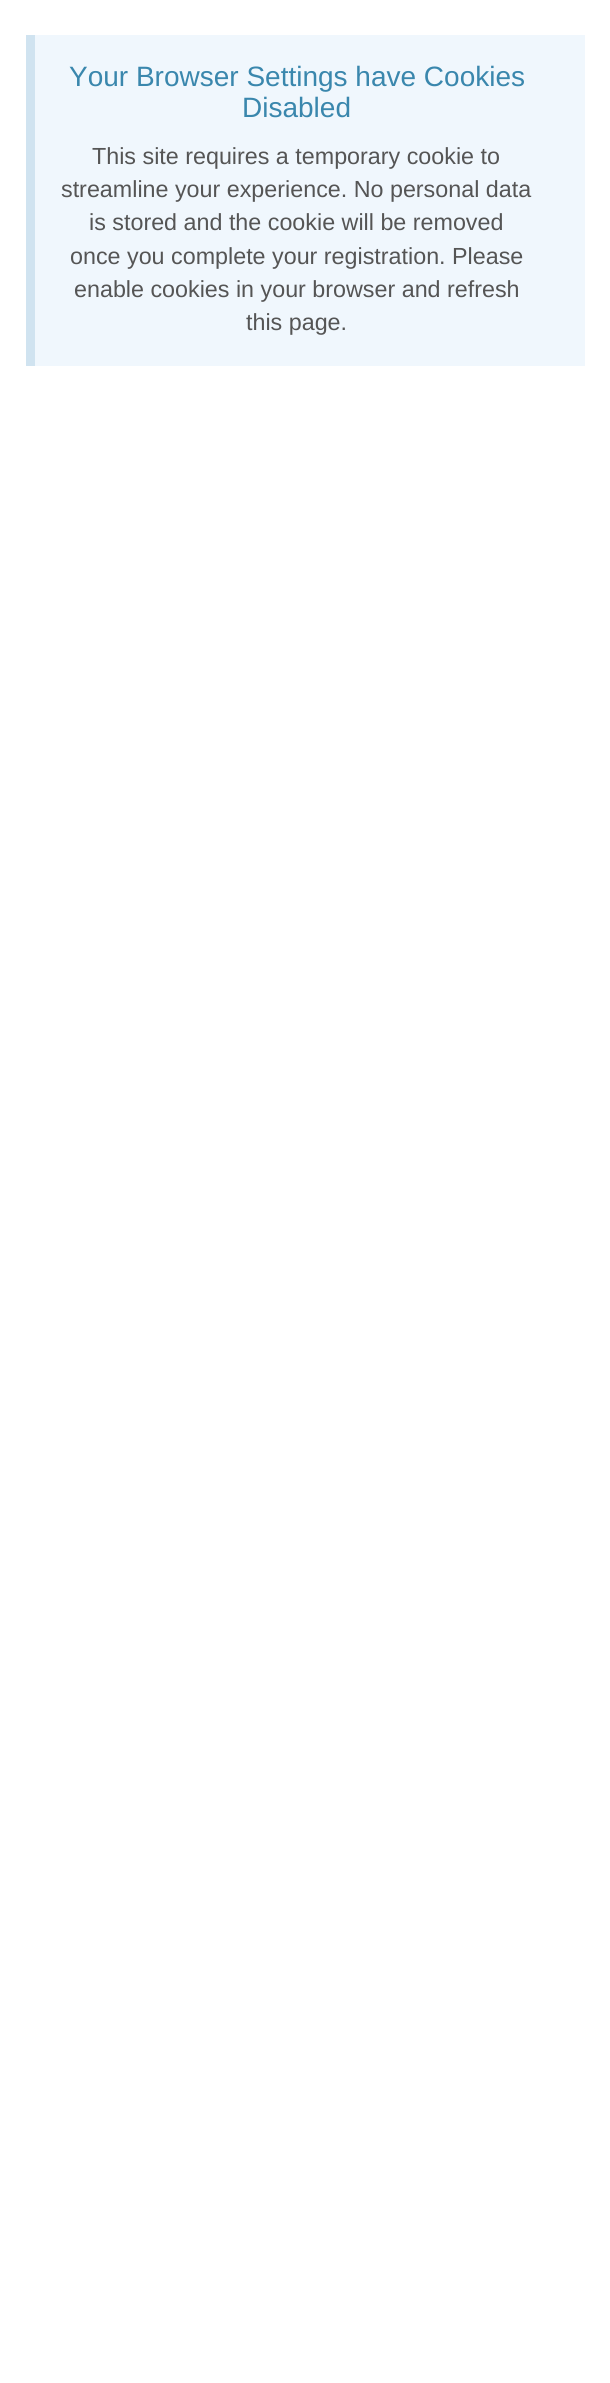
#include <cairo/cairo.h>
#include <math.h>
#include <stddef.h>

typedef struct { double x, y; const char *s; } line_t;
static cairo_t *cr;

static void rgb(unsigned color)
{
	cairo_set_source_rgb(cr, (color >> 16) / 255.0, (color >> 8 & 255) / 255.0, (color & 255) / 255.0);
}

int main(void) {
	cairo_surface_t *surface = cairo_image_surface_create(CAIRO_FORMAT_RGB24, 610, 2383);
	cr = cairo_create(surface);
	cairo_font_options_t *options = cairo_font_options_create();
	cairo_font_options_set_hint_metrics(options, CAIRO_HINT_METRICS_OFF);
	cairo_font_options_set_hint_style(options, CAIRO_HINT_STYLE_NONE);
	cairo_set_font_options(cr, options);
	cairo_set_miter_limit(cr, 4);
	rgb(0xffffff);
	cairo_paint(cr);
	rgb(0xf0f7fd);
	cairo_rectangle(cr, 35, 35, 550, 331);
	cairo_fill(cr);
	rgb(0xd0e3f0);
	cairo_rectangle(cr, 26, 35, 9, 331);
	cairo_fill(cr);
	cairo_select_font_face(cr, "Liberation Sans", CAIRO_FONT_SLANT_NORMAL, CAIRO_FONT_WEIGHT_NORMAL);
	cairo_set_font_size(cr, 28);
	rgb(0x3a87ad);
	cairo_move_to(cr, 69, 86);
	cairo_show_text(cr, "Your Browser Settings have Cookies");
	cairo_move_to(cr, 242, 117);
	cairo_show_text(cr, "Disabled");
	cairo_set_font_size(cr, 23.3);
	rgb(0x555555);
	{
		static const line_t items[] = {
			{92, 164, "This site requires a temporary cookie to"},
			{61, 197, "streamline your experience. No personal data"},
			{89, 230, "is stored and the cookie will be removed"},
			{70, 264, "once you complete your registration. Please"},
			{74, 297, "enable cookies in your browser and refresh"},
			{246, 330, "this page."},
		};
		for (size_t i = 0; i < sizeof items / sizeof *items; i++) {
			cairo_move_to(cr, items[i].x, items[i].y);
			cairo_show_text(cr, items[i].s);
		}
	}
	cairo_surface_write_to_png(surface, "page.png");
	cairo_font_options_destroy(options);
	cairo_destroy(cr);
	cairo_surface_destroy(surface);
	return 0;
}
